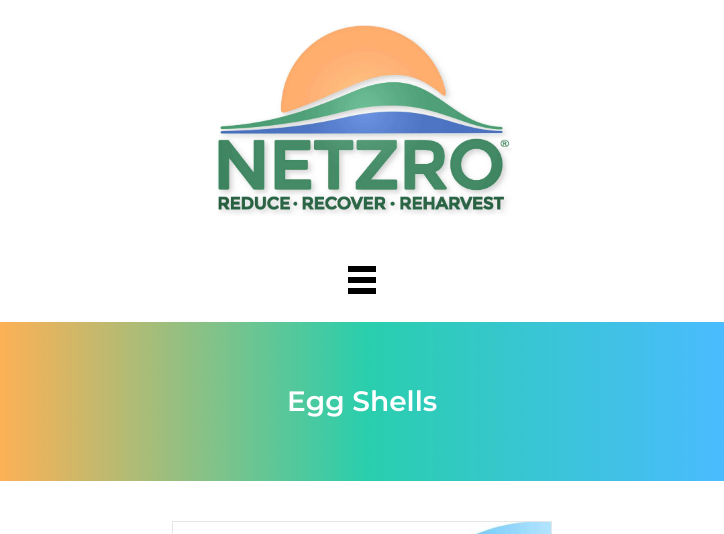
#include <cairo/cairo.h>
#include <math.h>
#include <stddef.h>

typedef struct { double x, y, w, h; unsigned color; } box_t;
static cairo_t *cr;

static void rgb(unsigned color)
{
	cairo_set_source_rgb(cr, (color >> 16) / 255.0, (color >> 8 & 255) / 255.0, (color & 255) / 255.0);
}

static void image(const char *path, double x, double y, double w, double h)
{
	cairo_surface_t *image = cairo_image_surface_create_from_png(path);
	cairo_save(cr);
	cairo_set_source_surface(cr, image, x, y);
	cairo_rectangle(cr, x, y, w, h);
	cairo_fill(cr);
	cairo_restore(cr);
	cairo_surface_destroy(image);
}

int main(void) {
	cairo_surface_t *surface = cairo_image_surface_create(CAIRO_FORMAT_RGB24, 724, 534);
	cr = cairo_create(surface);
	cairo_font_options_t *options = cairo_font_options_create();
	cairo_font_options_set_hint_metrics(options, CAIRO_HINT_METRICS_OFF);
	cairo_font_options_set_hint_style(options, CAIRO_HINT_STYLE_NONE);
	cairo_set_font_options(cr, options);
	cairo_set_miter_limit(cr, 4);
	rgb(0xffffff);
	cairo_paint(cr);
	image("img/1.png", 217, 25, 295, 191);
	{
		static const box_t items[] = {
			{348, 266, 28, 6, 0x000000},
			{348, 277, 28, 6, 0x000000},
			{348, 288, 28, 6, 0x000000},
		};
		for (size_t i = 0; i < sizeof items / sizeof *items; i++) {
			rgb(items[i].color);
			cairo_rectangle(cr, items[i].x, items[i].y, items[i].w, items[i].h);
			cairo_fill(cr);
		}
	}
	image("img/2.png", 0, 322, 724, 159);
	cairo_rectangle(cr, 172.5, 521.5, 379, 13);
	rgb(0xe6e6e6);
	cairo_set_line_width(cr, 1);
	cairo_stroke(cr);
	image("img/3.png", 466, 522, 85, 12);
	cairo_select_font_face(cr, "Montserrat SemiBold", CAIRO_FONT_SLANT_NORMAL, CAIRO_FONT_WEIGHT_NORMAL);
	cairo_set_font_size(cr, 28);
	rgb(0xffffff);
	cairo_move_to(cr, 287, 411);
	cairo_show_text(cr, "Egg Shells");
	cairo_surface_write_to_png(surface, "page.png");
	cairo_font_options_destroy(options);
	cairo_destroy(cr);
	cairo_surface_destroy(surface);
	return 0;
}
